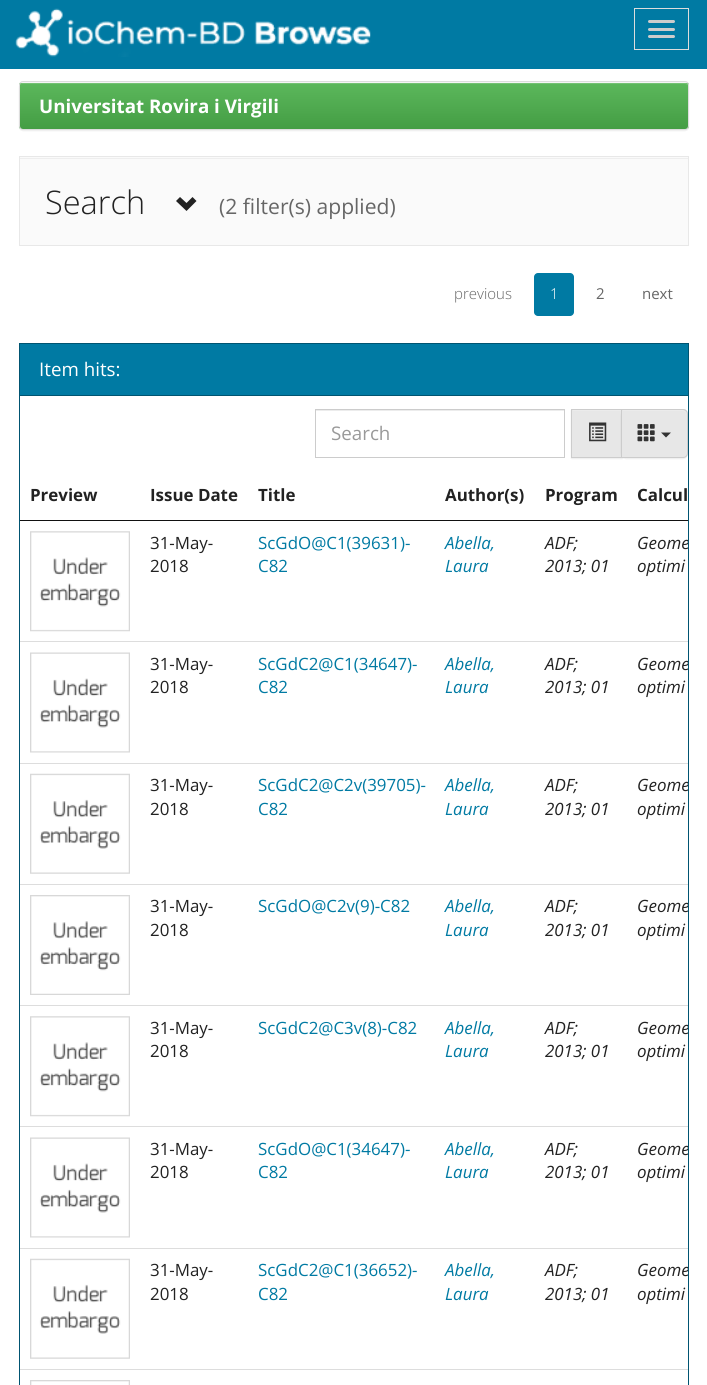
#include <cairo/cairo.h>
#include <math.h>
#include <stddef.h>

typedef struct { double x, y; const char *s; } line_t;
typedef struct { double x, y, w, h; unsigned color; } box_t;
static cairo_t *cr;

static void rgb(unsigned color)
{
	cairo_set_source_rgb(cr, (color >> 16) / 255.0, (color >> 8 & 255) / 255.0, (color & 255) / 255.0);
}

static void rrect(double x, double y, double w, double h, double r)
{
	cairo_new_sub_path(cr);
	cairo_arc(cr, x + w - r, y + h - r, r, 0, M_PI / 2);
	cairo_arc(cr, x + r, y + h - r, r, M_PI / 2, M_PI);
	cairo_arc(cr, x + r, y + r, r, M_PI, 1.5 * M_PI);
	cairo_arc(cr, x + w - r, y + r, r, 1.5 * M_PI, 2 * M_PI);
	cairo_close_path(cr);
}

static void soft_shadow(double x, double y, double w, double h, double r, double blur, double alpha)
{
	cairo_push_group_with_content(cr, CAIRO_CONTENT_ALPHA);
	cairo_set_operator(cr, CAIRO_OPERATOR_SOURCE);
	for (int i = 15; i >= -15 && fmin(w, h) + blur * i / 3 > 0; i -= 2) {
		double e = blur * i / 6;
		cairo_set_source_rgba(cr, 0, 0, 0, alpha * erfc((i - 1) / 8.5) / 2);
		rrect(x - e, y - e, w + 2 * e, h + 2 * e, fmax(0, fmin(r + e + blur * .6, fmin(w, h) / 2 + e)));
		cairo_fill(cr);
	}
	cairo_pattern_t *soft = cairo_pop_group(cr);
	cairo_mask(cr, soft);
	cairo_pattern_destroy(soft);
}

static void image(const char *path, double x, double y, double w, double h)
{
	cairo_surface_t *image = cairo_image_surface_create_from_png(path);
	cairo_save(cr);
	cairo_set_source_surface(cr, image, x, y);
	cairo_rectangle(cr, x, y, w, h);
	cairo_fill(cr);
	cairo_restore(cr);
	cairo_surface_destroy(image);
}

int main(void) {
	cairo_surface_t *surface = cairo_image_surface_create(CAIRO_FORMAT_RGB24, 707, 1385);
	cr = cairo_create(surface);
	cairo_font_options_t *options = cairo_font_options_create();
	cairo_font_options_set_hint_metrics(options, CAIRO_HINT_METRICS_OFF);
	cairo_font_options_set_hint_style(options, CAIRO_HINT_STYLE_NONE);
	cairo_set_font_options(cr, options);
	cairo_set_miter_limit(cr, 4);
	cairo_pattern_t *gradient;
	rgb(0xffffff);
	cairo_paint(cr);
	rgb(0x007aa3);
	cairo_rectangle(cr, 0, 0, 707, 69);
	cairo_fill(cr);
	image("img/1.png", 15, 8, 356, 49);
	cairo_rectangle(cr, 634.5, 8.5, 54, 41);
	rgb(0xdddddd);
	cairo_set_line_width(cr, 1);
	cairo_stroke(cr);
	rgb(0xcccccc);
	rrect(648, 20, 27, 3, 1.5);
	cairo_fill(cr);
	rrect(648, 28, 27, 3, 1.5);
	cairo_fill(cr);
	rrect(648, 35, 27, 3, 1.5);
	cairo_fill(cr);
	rgb(0x000000);
	soft_shadow(19, 83, 670, 48, 4, 0.5, 0.07);
	rgb(0xf5f5f5);
	rrect(19, 81, 670, 49, 4);
	cairo_fill(cr);
	cairo_save(cr);
	rrect(19, 81, 670, 49, 4);
	cairo_clip(cr);
	gradient = cairo_pattern_create_linear(354, 82, 354, 129);
	cairo_pattern_add_color_stop_rgba(gradient, 0, 0.361, 0.722, 0.361, 1);
	cairo_pattern_add_color_stop_rgba(gradient, 1, 0.267, 0.616, 0.267, 1);
	cairo_set_source(cr, gradient);
	cairo_pattern_destroy(gradient);
	cairo_rectangle(cr, 19, 83, 670, 46);
	cairo_fill(cr);
	cairo_restore(cr);
	rgb(0x74c274);
	cairo_new_path(cr);
	cairo_move_to(cr, 22, 84);
	cairo_line_to(cr, 685, 84);
	cairo_curve_to(cr, 686, 84, 688, 85, 688, 86);
	cairo_curve_to(cr, 688, 84, 687, 83, 686, 83);
	cairo_line_to(cr, 22, 83);
	cairo_curve_to(cr, 21, 83, 20, 84, 20, 86);
	cairo_curve_to(cr, 20, 85, 21, 84, 22, 84);
	cairo_close_path(cr);
	cairo_fill(cr);
	rrect(19.5, 81.5, 669, 48, 3.5);
	rgb(0xdddddd);
	cairo_stroke(cr);
	rgb(0xfafafa);
	cairo_rectangle(cr, 20, 157, 668, 88);
	cairo_fill(cr);
	rgb(0xeeeeee);
	cairo_rectangle(cr, 20, 158, 668, 1);
	cairo_fill(cr);
	cairo_rectangle(cr, 19.5, 156.5, 669, 89);
	rgb(0xe8e8e8);
	cairo_stroke(cr);
	rgb(0x222222);
	cairo_new_path(cr);
	cairo_move_to(cr, 186.5, 211);
	cairo_line_to(cr, 196.5, 201);
	cairo_line_to(cr, 192.5, 197);
	cairo_line_to(cr, 186.5, 203);
	cairo_line_to(cr, 180, 197);
	cairo_line_to(cr, 176, 201);
	cairo_close_path(cr);
	cairo_fill(cr);
	rgb(0x007aa3);
	rrect(534, 273, 40, 43, 4);
	cairo_fill(cr);
	cairo_rectangle(cr, 19.5, 343.5, 669, 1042);
	rgb(0x005471);
	cairo_stroke(cr);
	{
		static const box_t items[] = {
			{20, 344, 668, 51, 0x007aa3},
			{20, 395, 668, 1, 0x005471},
			{316, 410, 248, 1, 0xececec},
		};
		for (size_t i = 0; i < sizeof items / sizeof *items; i++) {
			rgb(items[i].color);
			cairo_rectangle(cr, items[i].x, items[i].y, items[i].w, items[i].h);
			cairo_fill(cr);
		}
	}
	cairo_rectangle(cr, 315.5, 409.5, 249, 48);
	rgb(0xcccccc);
	cairo_stroke(cr);
	rgb(0x000000);
	soft_shadow(571, 410, 52, 49, 0, 0.5, 0.07);
	rgb(0xe7e7e7);
	cairo_rectangle(cr, 572, 410, 49, 47);
	cairo_fill(cr);
	rgb(0xebebeb);
	cairo_rectangle(cr, 573, 410, 48, 1);
	cairo_fill(cr);
	cairo_rectangle(cr, 571.5, 409.5, 51, 48);
	rgb(0xcccccc);
	cairo_stroke(cr);
	image("img/2.png", 589, 422, 18, 20);
	rgb(0x000000);
	soft_shadow(621, 410, 67, 49, 5, 0.5, 0.07);
	rgb(0xe7e7e7);
	cairo_new_path(cr);
	cairo_move_to(cr, 621, 409);
	cairo_line_to(cr, 683, 409);
	cairo_curve_to(cr, 686, 409, 688, 411, 688, 414);
	cairo_line_to(cr, 688, 453);
	cairo_curve_to(cr, 688, 456, 686, 458, 683, 458);
	cairo_line_to(cr, 621, 458);
	cairo_close_path(cr);
	cairo_fill(cr);
	rgb(0xebebeb);
	cairo_new_path(cr);
	cairo_move_to(cr, 623, 410);
	cairo_line_to(cr, 623, 411);
	cairo_line_to(cr, 682, 411);
	cairo_curve_to(cr, 685, 411, 686, 413, 686, 415);
	cairo_curve_to(cr, 686, 412, 685, 410, 682, 410);
	cairo_close_path(cr);
	cairo_fill(cr);
	cairo_new_path(cr);
	cairo_move_to(cr, 621.5, 409.5);
	cairo_line_to(cr, 683, 409.5);
	cairo_curve_to(cr, 685.5, 409.5, 687.5, 411.5, 687.5, 414);
	cairo_line_to(cr, 687.5, 453);
	cairo_curve_to(cr, 687.5, 455.5, 685.5, 457.5, 683, 457.5);
	cairo_line_to(cr, 621.5, 457.5);
	cairo_close_path(cr);
	rgb(0xcccccc);
	cairo_stroke(cr);
	image("img/3.png", 637, 424, 18, 18);
	rgb(0x333333);
	cairo_new_path(cr);
	cairo_move_to(cr, 661, 432.5);
	cairo_line_to(cr, 671, 432.5);
	cairo_line_to(cr, 666, 437.5);
	cairo_close_path(cr);
	cairo_fill(cr);
	rgb(0x111111);
	cairo_rectangle(cr, 20, 520, 668, 1);
	cairo_fill(cr);
	image("img/4.png", 30, 531, 100, 101);
	image("img/5.png", 30, 652, 100, 101);
	rgb(0xdddddd);
	cairo_rectangle(cr, 20, 641, 668, 1);
	cairo_fill(cr);
	image("img/6.png", 30, 773, 100, 101);
	cairo_rectangle(cr, 20, 763, 668, 1);
	cairo_fill(cr);
	image("img/7.png", 30, 895, 100, 100);
	cairo_rectangle(cr, 20, 884, 668, 1);
	cairo_fill(cr);
	image("img/4.png", 30, 1016, 100, 101);
	cairo_rectangle(cr, 20, 1005, 668, 1);
	cairo_fill(cr);
	image("img/8.png", 30, 1137, 100, 101);
	cairo_rectangle(cr, 20, 1126, 668, 1);
	cairo_fill(cr);
	image("img/6.png", 30, 1258, 100, 101);
	cairo_rectangle(cr, 20, 1248, 668, 1);
	cairo_fill(cr);
	cairo_rectangle(cr, 20, 1369, 668, 1);
	cairo_fill(cr);
	image("img/9.png", 30, 1380, 100, 5);
	cairo_select_font_face(cr, "Open Sans", CAIRO_FONT_SLANT_NORMAL, CAIRO_FONT_WEIGHT_BOLD);
	cairo_set_font_size(cr, 18.75);
	rgb(0xffffff);
	cairo_move_to(cr, 39, 113);
	cairo_show_text(cr, "Universitat Rovira i Virgili");
	cairo_select_font_face(cr, "Open Sans Light", CAIRO_FONT_SLANT_NORMAL, CAIRO_FONT_WEIGHT_NORMAL);
	cairo_set_font_size(cr, 32.5);
	rgb(0x222222);
	cairo_move_to(cr, 45, 214);
	cairo_show_text(cr, "Search");
	cairo_select_font_face(cr, "Open Sans", CAIRO_FONT_SLANT_NORMAL, CAIRO_FONT_WEIGHT_NORMAL);
	cairo_set_font_size(cr, 21.1);
	rgb(0x666666);
	cairo_move_to(cr, 219, 214);
	cairo_show_text(cr, "(2 filter(s) applied)");
	cairo_select_font_face(cr, "Open Sans Light", CAIRO_FONT_SLANT_NORMAL, CAIRO_FONT_WEIGHT_NORMAL);
	cairo_set_font_size(cr, 15);
	cairo_move_to(cr, 454, 299);
	cairo_show_text(cr, "previous");
	rgb(0xffffff);
	cairo_move_to(cr, 550, 299);
	cairo_show_text(cr, "1");
	cairo_select_font_face(cr, "Open Sans", CAIRO_FONT_SLANT_NORMAL, CAIRO_FONT_WEIGHT_NORMAL);
	rgb(0x666666);
	cairo_move_to(cr, 596, 299);
	cairo_show_text(cr, "2");
	cairo_move_to(cr, 642, 299);
	cairo_show_text(cr, "next");
	cairo_set_font_size(cr, 18.75);
	rgb(0xffffff);
	cairo_move_to(cr, 39, 376);
	cairo_show_text(cr, "Item hits:");
	rgb(0x999999);
	cairo_move_to(cr, 331, 440);
	cairo_show_text(cr, "Search");
	cairo_select_font_face(cr, "Open Sans", CAIRO_FONT_SLANT_NORMAL, CAIRO_FONT_WEIGHT_BOLD);
	cairo_set_font_size(cr, 16.9);
	rgb(0x222222);
	{
		static const line_t items[] = {
			{30, 501, "Preview"},
			{150, 501, "Issue Date"},
			{258, 501, "Title"},
			{445, 501, "Author(s)"},
			{545, 501, "Program"},
			{637, 501, "Calcul"},
		};
		for (size_t i = 0; i < sizeof items / sizeof *items; i++) {
			cairo_move_to(cr, items[i].x, items[i].y);
			cairo_show_text(cr, items[i].s);
		}
	}
	cairo_select_font_face(cr, "Open Sans", CAIRO_FONT_SLANT_NORMAL, CAIRO_FONT_WEIGHT_NORMAL);
	cairo_move_to(cr, 150, 549);
	cairo_show_text(cr, "31-May-");
	cairo_move_to(cr, 150, 572);
	cairo_show_text(cr, "2018");
	rgb(0x007aa3);
	cairo_move_to(cr, 258, 549);
	cairo_show_text(cr, "ScGdO@C1(39631)-");
	cairo_move_to(cr, 258, 572);
	cairo_show_text(cr, "C82");
	cairo_select_font_face(cr, "Open Sans", CAIRO_FONT_SLANT_ITALIC, CAIRO_FONT_WEIGHT_NORMAL);
	cairo_move_to(cr, 445, 549);
	cairo_show_text(cr, "Abella,");
	cairo_move_to(cr, 445, 572);
	cairo_show_text(cr, "Laura");
	rgb(0x222222);
	cairo_move_to(cr, 545, 549);
	cairo_show_text(cr, "ADF;");
	cairo_move_to(cr, 545, 572);
	cairo_show_text(cr, "2013; 01");
	cairo_save(cr);
	cairo_rectangle(cr, 20, 470, 668, 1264);
	cairo_clip(cr);
	cairo_move_to(cr, 637, 549);
	cairo_show_text(cr, "Geome");
	cairo_restore(cr);
	cairo_move_to(cr, 637, 572);
	cairo_show_text(cr, "optimi");
	cairo_select_font_face(cr, "Open Sans", CAIRO_FONT_SLANT_NORMAL, CAIRO_FONT_WEIGHT_NORMAL);
	cairo_move_to(cr, 150, 670);
	cairo_show_text(cr, "31-May-");
	cairo_move_to(cr, 150, 693);
	cairo_show_text(cr, "2018");
	rgb(0x007aa3);
	cairo_move_to(cr, 258, 670);
	cairo_show_text(cr, "ScGdC2@C1(34647)-");
	cairo_move_to(cr, 258, 693);
	cairo_show_text(cr, "C82");
	cairo_select_font_face(cr, "Open Sans", CAIRO_FONT_SLANT_ITALIC, CAIRO_FONT_WEIGHT_NORMAL);
	cairo_move_to(cr, 445, 670);
	cairo_show_text(cr, "Abella,");
	cairo_move_to(cr, 445, 693);
	cairo_show_text(cr, "Laura");
	rgb(0x222222);
	cairo_move_to(cr, 545, 670);
	cairo_show_text(cr, "ADF;");
	cairo_move_to(cr, 545, 693);
	cairo_show_text(cr, "2013; 01");
	cairo_save(cr);
	cairo_rectangle(cr, 20, 470, 668, 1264);
	cairo_clip(cr);
	cairo_move_to(cr, 637, 670);
	cairo_show_text(cr, "Geome");
	cairo_restore(cr);
	cairo_move_to(cr, 637, 693);
	cairo_show_text(cr, "optimi");
	cairo_select_font_face(cr, "Open Sans", CAIRO_FONT_SLANT_NORMAL, CAIRO_FONT_WEIGHT_NORMAL);
	cairo_move_to(cr, 150, 791);
	cairo_show_text(cr, "31-May-");
	cairo_move_to(cr, 150, 815);
	cairo_show_text(cr, "2018");
	rgb(0x007aa3);
	cairo_move_to(cr, 258, 791);
	cairo_show_text(cr, "ScGdC2@C2v(39705)-");
	cairo_move_to(cr, 258, 815);
	cairo_show_text(cr, "C82");
	cairo_select_font_face(cr, "Open Sans", CAIRO_FONT_SLANT_ITALIC, CAIRO_FONT_WEIGHT_NORMAL);
	cairo_move_to(cr, 445, 791);
	cairo_show_text(cr, "Abella,");
	cairo_move_to(cr, 445, 815);
	cairo_show_text(cr, "Laura");
	rgb(0x222222);
	cairo_move_to(cr, 545, 791);
	cairo_show_text(cr, "ADF;");
	cairo_move_to(cr, 545, 815);
	cairo_show_text(cr, "2013; 01");
	cairo_save(cr);
	cairo_rectangle(cr, 20, 470, 668, 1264);
	cairo_clip(cr);
	cairo_move_to(cr, 637, 791);
	cairo_show_text(cr, "Geome");
	cairo_restore(cr);
	cairo_move_to(cr, 637, 815);
	cairo_show_text(cr, "optimi");
	cairo_select_font_face(cr, "Open Sans", CAIRO_FONT_SLANT_NORMAL, CAIRO_FONT_WEIGHT_NORMAL);
	cairo_move_to(cr, 150, 912);
	cairo_show_text(cr, "31-May-");
	cairo_move_to(cr, 150, 936);
	cairo_show_text(cr, "2018");
	rgb(0x007aa3);
	cairo_move_to(cr, 258, 912);
	cairo_show_text(cr, "ScGdO@C2v(9)-C82");
	cairo_select_font_face(cr, "Open Sans", CAIRO_FONT_SLANT_ITALIC, CAIRO_FONT_WEIGHT_NORMAL);
	cairo_move_to(cr, 445, 912);
	cairo_show_text(cr, "Abella,");
	cairo_move_to(cr, 445, 936);
	cairo_show_text(cr, "Laura");
	rgb(0x222222);
	cairo_move_to(cr, 545, 912);
	cairo_show_text(cr, "ADF;");
	cairo_move_to(cr, 545, 936);
	cairo_show_text(cr, "2013; 01");
	cairo_save(cr);
	cairo_rectangle(cr, 20, 470, 668, 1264);
	cairo_clip(cr);
	cairo_move_to(cr, 637, 912);
	cairo_show_text(cr, "Geome");
	cairo_restore(cr);
	cairo_move_to(cr, 637, 936);
	cairo_show_text(cr, "optimi");
	cairo_select_font_face(cr, "Open Sans", CAIRO_FONT_SLANT_NORMAL, CAIRO_FONT_WEIGHT_NORMAL);
	cairo_move_to(cr, 150, 1034);
	cairo_show_text(cr, "31-May-");
	cairo_move_to(cr, 150, 1057);
	cairo_show_text(cr, "2018");
	rgb(0x007aa3);
	cairo_move_to(cr, 258, 1034);
	cairo_show_text(cr, "ScGdC2@C3v(8)-C82");
	cairo_select_font_face(cr, "Open Sans", CAIRO_FONT_SLANT_ITALIC, CAIRO_FONT_WEIGHT_NORMAL);
	cairo_move_to(cr, 445, 1034);
	cairo_show_text(cr, "Abella,");
	cairo_move_to(cr, 445, 1057);
	cairo_show_text(cr, "Laura");
	rgb(0x222222);
	cairo_move_to(cr, 545, 1034);
	cairo_show_text(cr, "ADF;");
	cairo_move_to(cr, 545, 1057);
	cairo_show_text(cr, "2013; 01");
	cairo_save(cr);
	cairo_rectangle(cr, 20, 470, 668, 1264);
	cairo_clip(cr);
	cairo_move_to(cr, 637, 1034);
	cairo_show_text(cr, "Geome");
	cairo_restore(cr);
	cairo_move_to(cr, 637, 1057);
	cairo_show_text(cr, "optimi");
	cairo_select_font_face(cr, "Open Sans", CAIRO_FONT_SLANT_NORMAL, CAIRO_FONT_WEIGHT_NORMAL);
	cairo_move_to(cr, 150, 1155);
	cairo_show_text(cr, "31-May-");
	cairo_move_to(cr, 150, 1178);
	cairo_show_text(cr, "2018");
	rgb(0x007aa3);
	cairo_move_to(cr, 258, 1155);
	cairo_show_text(cr, "ScGdO@C1(34647)-");
	cairo_move_to(cr, 258, 1178);
	cairo_show_text(cr, "C82");
	cairo_select_font_face(cr, "Open Sans", CAIRO_FONT_SLANT_ITALIC, CAIRO_FONT_WEIGHT_NORMAL);
	cairo_move_to(cr, 445, 1155);
	cairo_show_text(cr, "Abella,");
	cairo_move_to(cr, 445, 1178);
	cairo_show_text(cr, "Laura");
	rgb(0x222222);
	cairo_move_to(cr, 545, 1155);
	cairo_show_text(cr, "ADF;");
	cairo_move_to(cr, 545, 1178);
	cairo_show_text(cr, "2013; 01");
	cairo_save(cr);
	cairo_rectangle(cr, 20, 470, 668, 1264);
	cairo_clip(cr);
	cairo_move_to(cr, 637, 1155);
	cairo_show_text(cr, "Geome");
	cairo_restore(cr);
	cairo_move_to(cr, 637, 1178);
	cairo_show_text(cr, "optimi");
	cairo_select_font_face(cr, "Open Sans", CAIRO_FONT_SLANT_NORMAL, CAIRO_FONT_WEIGHT_NORMAL);
	cairo_move_to(cr, 150, 1276);
	cairo_show_text(cr, "31-May-");
	cairo_move_to(cr, 150, 1300);
	cairo_show_text(cr, "2018");
	rgb(0x007aa3);
	cairo_move_to(cr, 258, 1276);
	cairo_show_text(cr, "ScGdC2@C1(36652)-");
	cairo_move_to(cr, 258, 1300);
	cairo_show_text(cr, "C82");
	cairo_select_font_face(cr, "Open Sans", CAIRO_FONT_SLANT_ITALIC, CAIRO_FONT_WEIGHT_NORMAL);
	cairo_move_to(cr, 445, 1276);
	cairo_show_text(cr, "Abella,");
	cairo_move_to(cr, 445, 1300);
	cairo_show_text(cr, "Laura");
	rgb(0x222222);
	cairo_move_to(cr, 545, 1276);
	cairo_show_text(cr, "ADF;");
	cairo_move_to(cr, 545, 1300);
	cairo_show_text(cr, "2013; 01");
	cairo_save(cr);
	cairo_rectangle(cr, 20, 470, 668, 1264);
	cairo_clip(cr);
	cairo_move_to(cr, 637, 1276);
	cairo_show_text(cr, "Geome");
	cairo_restore(cr);
	cairo_move_to(cr, 637, 1300);
	cairo_show_text(cr, "optimi");
	cairo_surface_write_to_png(surface, "page.png");
	cairo_font_options_destroy(options);
	cairo_destroy(cr);
	cairo_surface_destroy(surface);
	return 0;
}
